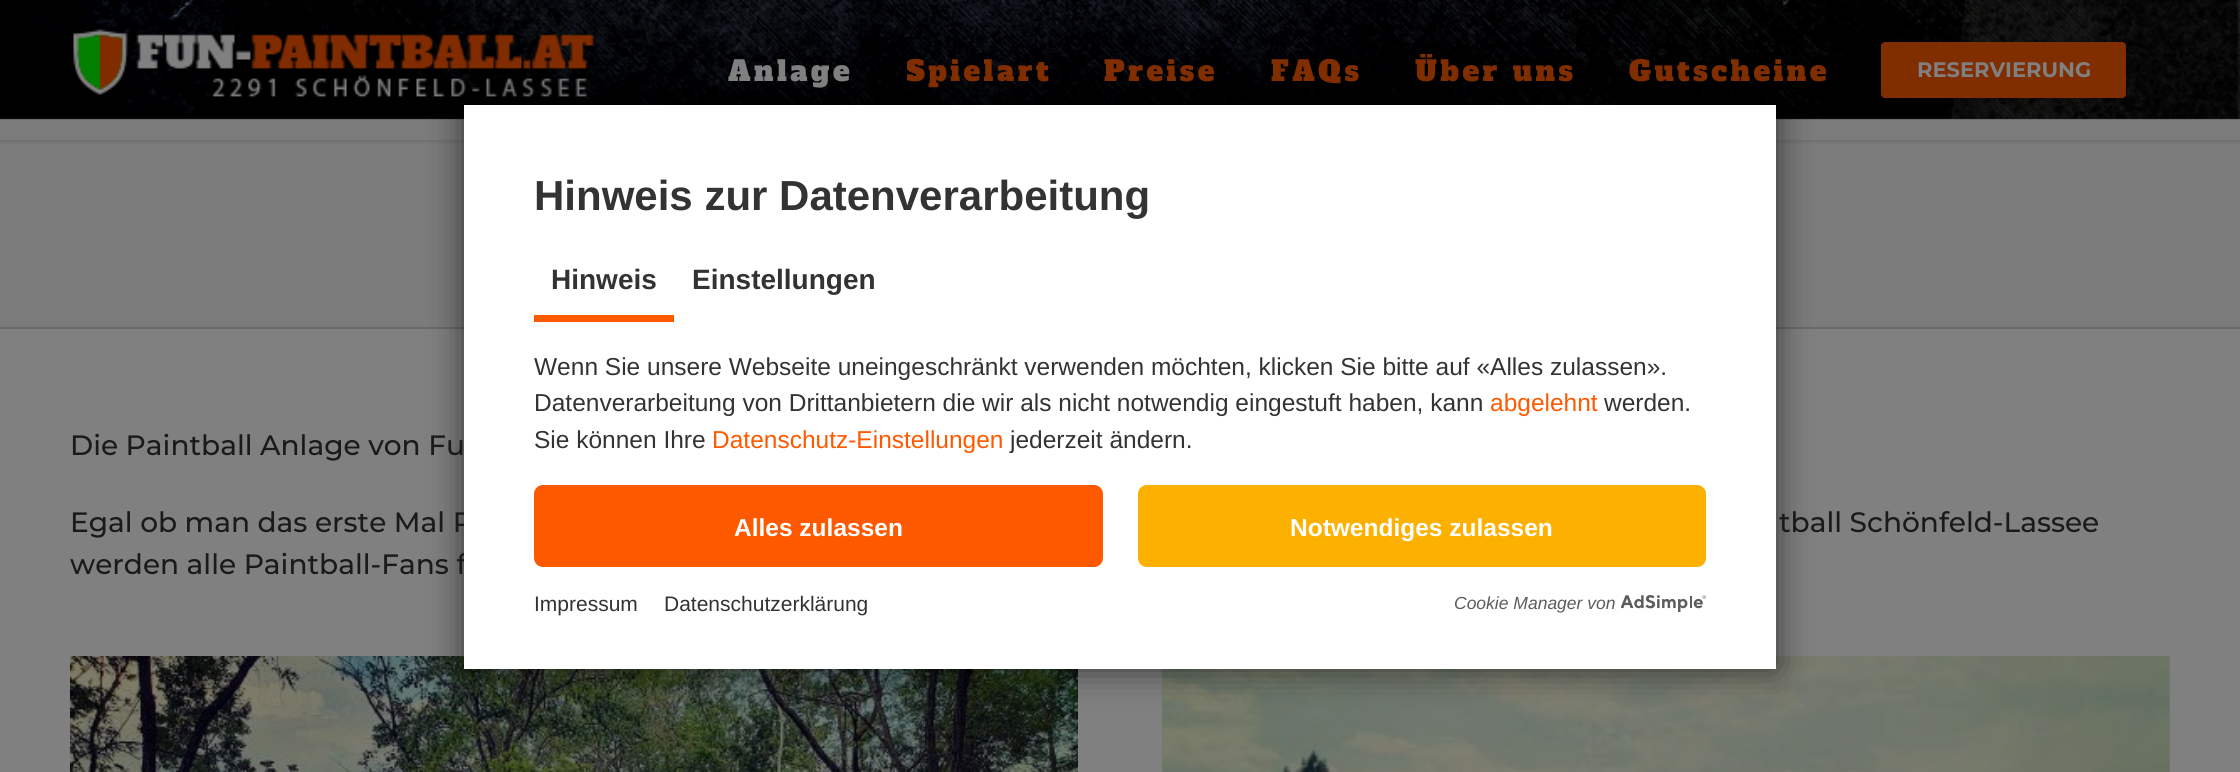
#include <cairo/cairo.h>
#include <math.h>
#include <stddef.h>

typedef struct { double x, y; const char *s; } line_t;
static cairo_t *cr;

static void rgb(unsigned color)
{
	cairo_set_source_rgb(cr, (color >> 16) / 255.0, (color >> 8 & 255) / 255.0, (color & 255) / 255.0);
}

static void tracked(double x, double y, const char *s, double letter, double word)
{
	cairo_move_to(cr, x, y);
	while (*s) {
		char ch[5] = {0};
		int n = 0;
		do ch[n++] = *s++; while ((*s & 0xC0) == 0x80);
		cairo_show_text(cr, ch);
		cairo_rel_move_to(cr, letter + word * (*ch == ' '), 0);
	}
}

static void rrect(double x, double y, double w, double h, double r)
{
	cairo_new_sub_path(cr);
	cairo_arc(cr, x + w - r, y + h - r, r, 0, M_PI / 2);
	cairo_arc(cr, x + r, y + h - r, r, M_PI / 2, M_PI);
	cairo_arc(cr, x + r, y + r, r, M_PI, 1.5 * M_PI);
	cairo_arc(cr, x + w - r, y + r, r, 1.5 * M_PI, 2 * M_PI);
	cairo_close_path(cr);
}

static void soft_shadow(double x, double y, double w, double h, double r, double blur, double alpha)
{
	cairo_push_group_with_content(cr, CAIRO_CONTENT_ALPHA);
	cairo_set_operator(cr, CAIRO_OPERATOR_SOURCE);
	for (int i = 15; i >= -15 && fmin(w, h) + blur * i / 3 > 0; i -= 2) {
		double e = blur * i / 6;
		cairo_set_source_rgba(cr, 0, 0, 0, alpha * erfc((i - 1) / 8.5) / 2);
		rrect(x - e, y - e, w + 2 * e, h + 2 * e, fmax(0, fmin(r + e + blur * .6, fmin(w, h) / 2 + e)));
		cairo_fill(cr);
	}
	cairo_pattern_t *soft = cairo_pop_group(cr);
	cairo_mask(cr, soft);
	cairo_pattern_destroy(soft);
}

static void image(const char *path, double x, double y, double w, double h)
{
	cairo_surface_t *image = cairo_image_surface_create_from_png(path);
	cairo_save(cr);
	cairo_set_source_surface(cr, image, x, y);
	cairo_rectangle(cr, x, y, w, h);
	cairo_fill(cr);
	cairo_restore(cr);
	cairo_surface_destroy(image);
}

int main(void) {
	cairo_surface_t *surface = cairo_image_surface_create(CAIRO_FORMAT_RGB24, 2240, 772);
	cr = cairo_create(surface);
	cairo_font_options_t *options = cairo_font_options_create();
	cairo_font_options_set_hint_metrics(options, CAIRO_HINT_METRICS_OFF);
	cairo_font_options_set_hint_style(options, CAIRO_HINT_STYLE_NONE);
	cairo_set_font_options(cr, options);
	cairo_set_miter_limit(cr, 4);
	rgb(0x808080);
	cairo_paint(cr);
	rgb(0x7b7b7b);
	cairo_rectangle(cr, 0, 118, 2240, 209);
	cairo_fill(cr);
	cairo_save(cr);
	cairo_rectangle(cr, 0, 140, 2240, 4);
	cairo_clip(cr);
	rgb(0x000000);
	soft_shadow(0, 2, 2240, 140, 0, 2.5, 0.12);
	cairo_restore(cr);
	image("img/1.png", 0, 0, 2240, 120);
	image("img/2.png", 73, 29, 521, 68);
	rgb(0x802d00);
	rrect(1881, 42, 245, 56, 4);
	cairo_fill(cr);
	rgb(0x696a6a);
	cairo_rectangle(cr, 0, 327, 2240, 2);
	cairo_fill(cr);
	image("img/3.png", 70, 656, 1008, 116);
	image("img/4.png", 1162, 656, 1008, 116);
	rgb(0x000000);
	soft_shadow(464, 105, 1312, 564, 0, 17.5, 0.6);
	cairo_select_font_face(cr, "Alfa Slab One", CAIRO_FONT_SLANT_NORMAL, CAIRO_FONT_WEIGHT_NORMAL);
	cairo_set_font_size(cr, 28);
	rgb(0x808080);
	tracked(728, 81, "Anlage", 3.5, 0);
	cairo_save(cr);
	cairo_rectangle(cr, 907, 0, 197, 140);
	cairo_clip(cr);
	rgb(0x802d00);
	tracked(906, 81, "Spielart", 3.5, 0);
	cairo_restore(cr);
	rgb(0x802d00);
	{
		static const line_t items[] = {
			{1104, 81, "Preise"},
			{1271, 81, "FAQs"},
			{1415, 81, "Über uns"},
			{1629, 81, "Gutscheine"},
		};
		for (size_t i = 0; i < sizeof items / sizeof *items; i++) {
			tracked(items[i].x, items[i].y, items[i].s, 3.5, 0);
		}
	}
	cairo_select_font_face(cr, "Montserrat", CAIRO_FONT_SLANT_NORMAL, CAIRO_FONT_WEIGHT_BOLD);
	cairo_set_font_size(cr, 21);
	rgb(0x808080);
	cairo_move_to(cr, 1917, 77);
	cairo_show_text(cr, "RESERVIERUNG");
	cairo_select_font_face(cr, "Montserrat Medium", CAIRO_FONT_SLANT_NORMAL, CAIRO_FONT_WEIGHT_NORMAL);
	cairo_set_font_size(cr, 28);
	rgb(0x1a1a1a);
	{
		static const line_t items[] = {
			{70, 455, "Die Paintball Anlage von Fu"},
			{70, 532, "Egal ob man das erste Mal P"},
			{1779, 532, "tball Schönfeld-Lassee"},
			{70, 574, "werden alle Paintball-Fans f"},
		};
		for (size_t i = 0; i < sizeof items / sizeof *items; i++) {
			cairo_move_to(cr, items[i].x, items[i].y);
			cairo_show_text(cr, items[i].s);
		}
	}
	rgb(0xffffff);
	cairo_rectangle(cr, 464, 105, 1312, 564);
	cairo_fill(cr);
	cairo_select_font_face(cr, "Liberation Sans", CAIRO_FONT_SLANT_NORMAL, CAIRO_FONT_WEIGHT_BOLD);
	cairo_set_font_size(cr, 42);
	rgb(0x333333);
	cairo_move_to(cr, 534, 210);
	cairo_show_text(cr, "Hinweis zur Datenverarbeitung");
	rgb(0xff5900);
	cairo_rectangle(cr, 534, 315, 140, 7);
	cairo_fill(cr);
	cairo_set_font_size(cr, 28);
	rgb(0x333333);
	cairo_move_to(cr, 551, 289);
	cairo_show_text(cr, "Hinweis");
	cairo_move_to(cr, 692, 289);
	cairo_show_text(cr, "Einstellungen");
	cairo_select_font_face(cr, "Liberation Sans", CAIRO_FONT_SLANT_NORMAL, CAIRO_FONT_WEIGHT_NORMAL);
	cairo_set_font_size(cr, 24.5);
	cairo_move_to(cr, 534, 375);
	cairo_show_text(cr, "Wenn Sie unsere Webseite uneingeschränkt verwenden möchten, klicken Sie bitte auf «Alles zulassen».");
	cairo_move_to(cr, 534, 411);
	cairo_show_text(cr, "Datenverarbeitung von Drittanbietern die wir als nicht notwendig eingestuft haben, kann");
	rgb(0xff5900);
	cairo_move_to(cr, 1490, 411);
	cairo_show_text(cr, "abgelehnt");
	rgb(0x333333);
	cairo_move_to(cr, 1604, 411);
	cairo_show_text(cr, "werden.");
	cairo_move_to(cr, 534, 448);
	cairo_show_text(cr, "Sie können Ihre");
	rgb(0xff5900);
	cairo_move_to(cr, 712, 448);
	cairo_show_text(cr, "Datenschutz-Einstellungen");
	rgb(0x333333);
	cairo_move_to(cr, 1010, 448);
	cairo_show_text(cr, "jederzeit ändern.");
	rgb(0xff5900);
	rrect(536, 487, 565, 78, 7);
	cairo_fill_preserve(cr);
	cairo_set_line_width(cr, 4);
	cairo_stroke(cr);
	cairo_select_font_face(cr, "Liberation Sans", CAIRO_FONT_SLANT_NORMAL, CAIRO_FONT_WEIGHT_BOLD);
	rgb(0xffffff);
	cairo_move_to(cr, 734, 536);
	cairo_show_text(cr, "Alles zulassen");
	rgb(0xfcb100);
	rrect(1140, 487, 564, 78, 7);
	cairo_fill_preserve(cr);
	cairo_stroke(cr);
	rgb(0xffffff);
	cairo_move_to(cr, 1290, 536);
	cairo_show_text(cr, "Notwendiges zulassen");
	cairo_select_font_face(cr, "Liberation Sans", CAIRO_FONT_SLANT_NORMAL, CAIRO_FONT_WEIGHT_NORMAL);
	cairo_set_font_size(cr, 21);
	rgb(0x333333);
	cairo_move_to(cr, 534, 611);
	cairo_show_text(cr, "Impressum");
	cairo_move_to(cr, 664, 611);
	cairo_show_text(cr, "Datenschutzerklärung");
	cairo_select_font_face(cr, "Liberation Sans", CAIRO_FONT_SLANT_ITALIC, CAIRO_FONT_WEIGHT_NORMAL);
	cairo_set_font_size(cr, 17.5);
	rgb(0x5c5c5c);
	cairo_move_to(cr, 1454, 609);
	cairo_show_text(cr, "Cookie Manager von");
	image("img/5.png", 1621, 595, 85, 17);
	cairo_surface_write_to_png(surface, "page.png");
	cairo_font_options_destroy(options);
	cairo_destroy(cr);
	cairo_surface_destroy(surface);
	return 0;
}
